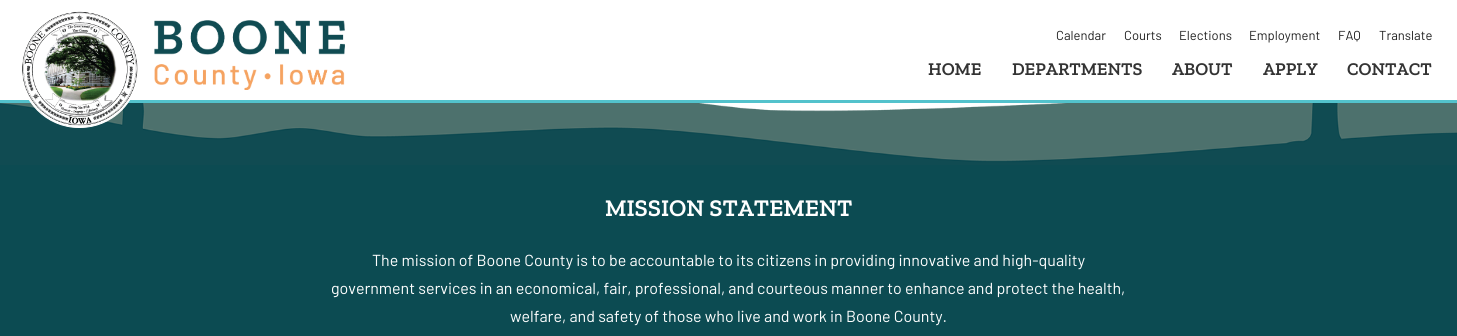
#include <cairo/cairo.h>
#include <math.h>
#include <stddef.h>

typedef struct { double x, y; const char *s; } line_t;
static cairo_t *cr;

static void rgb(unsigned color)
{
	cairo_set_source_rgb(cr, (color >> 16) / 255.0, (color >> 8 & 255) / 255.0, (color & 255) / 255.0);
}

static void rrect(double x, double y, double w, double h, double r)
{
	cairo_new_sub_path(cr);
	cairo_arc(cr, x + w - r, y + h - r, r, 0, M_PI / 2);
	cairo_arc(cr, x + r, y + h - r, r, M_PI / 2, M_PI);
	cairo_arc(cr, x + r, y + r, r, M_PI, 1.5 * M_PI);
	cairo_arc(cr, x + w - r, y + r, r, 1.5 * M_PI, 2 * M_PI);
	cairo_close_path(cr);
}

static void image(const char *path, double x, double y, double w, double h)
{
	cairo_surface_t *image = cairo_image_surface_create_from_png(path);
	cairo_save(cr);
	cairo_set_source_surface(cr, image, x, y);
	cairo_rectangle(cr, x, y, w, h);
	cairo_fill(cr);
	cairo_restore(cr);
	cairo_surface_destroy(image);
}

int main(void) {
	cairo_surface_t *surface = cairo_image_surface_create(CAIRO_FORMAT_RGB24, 1457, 336);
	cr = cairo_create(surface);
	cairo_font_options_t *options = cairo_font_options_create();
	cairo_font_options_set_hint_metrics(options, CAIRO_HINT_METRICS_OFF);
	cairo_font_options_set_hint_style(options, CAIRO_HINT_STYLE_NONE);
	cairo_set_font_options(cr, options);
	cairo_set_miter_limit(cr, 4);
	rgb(0xffffff);
	cairo_paint(cr);
	rgb(0x53c2cc);
	cairo_rectangle(cr, 0, 100, 1457, 3);
	cairo_fill(cr);
	image("img/3.png", 0, 103, 1457, 62);
	rgb(0xffffff);
	rrect(20.5, 10.5, 118, 117, 58.5);
	cairo_fill_preserve(cr);
	cairo_set_line_width(cr, 1);
	cairo_stroke(cr);
	image("img/1.png", 22, 11, 116, 115);
	image("img/2.png", 154, 20, 191, 70);
	rgb(0x0c4b52);
	cairo_rectangle(cr, 0, 165, 1457, 171);
	cairo_fill(cr);
	cairo_select_font_face(cr, "Barlow", CAIRO_FONT_SLANT_NORMAL, CAIRO_FONT_WEIGHT_NORMAL);
	cairo_set_font_size(cr, 13);
	rgb(0x222222);
	{
		static const line_t items[] = {
			{1056, 40, "Calendar"},
			{1124, 40, "Courts"},
			{1179, 40, "Elections"},
			{1249, 40, "Employment"},
			{1338, 40, "FAQ"},
			{1379, 40, "Translate"},
		};
		for (size_t i = 0; i < sizeof items / sizeof *items; i++) {
			cairo_move_to(cr, items[i].x, items[i].y);
			cairo_show_text(cr, items[i].s);
		}
	}
	cairo_select_font_face(cr, "Zilla Slab SemiBold", CAIRO_FONT_SLANT_NORMAL, CAIRO_FONT_WEIGHT_NORMAL);
	cairo_set_font_size(cr, 18);
	rgb(0x333333);
	{
		static const line_t items[] = {
			{928, 75, "HOME"},
			{1012, 75, "DEPARTMENTS"},
			{1172, 75, "ABOUT"},
			{1263, 75, "APPLY"},
			{1347, 75, "CONTACT"},
		};
		for (size_t i = 0; i < sizeof items / sizeof *items; i++) {
			cairo_move_to(cr, items[i].x, items[i].y);
			cairo_show_text(cr, items[i].s);
		}
	}
	cairo_set_font_size(cr, 24);
	rgb(0xffffff);
	cairo_move_to(cr, 605, 216);
	cairo_show_text(cr, "MISSION STATEMENT");
	cairo_select_font_face(cr, "Barlow", CAIRO_FONT_SLANT_NORMAL, CAIRO_FONT_WEIGHT_NORMAL);
	cairo_set_font_size(cr, 16);
	{
		static const line_t items[] = {
			{372, 266, "The mission of Boone County is to be accountable to its citizens in providing innovative and high-quality"},
			{331, 294, "government services in an economical, fair, professional, and courteous manner to enhance and protect the health,"},
			{510, 322, "welfare, and safety of those who live and work in Boone County."},
		};
		for (size_t i = 0; i < sizeof items / sizeof *items; i++) {
			cairo_move_to(cr, items[i].x, items[i].y);
			cairo_show_text(cr, items[i].s);
		}
	}
	cairo_surface_write_to_png(surface, "page.png");
	cairo_font_options_destroy(options);
	cairo_destroy(cr);
	cairo_surface_destroy(surface);
	return 0;
}
